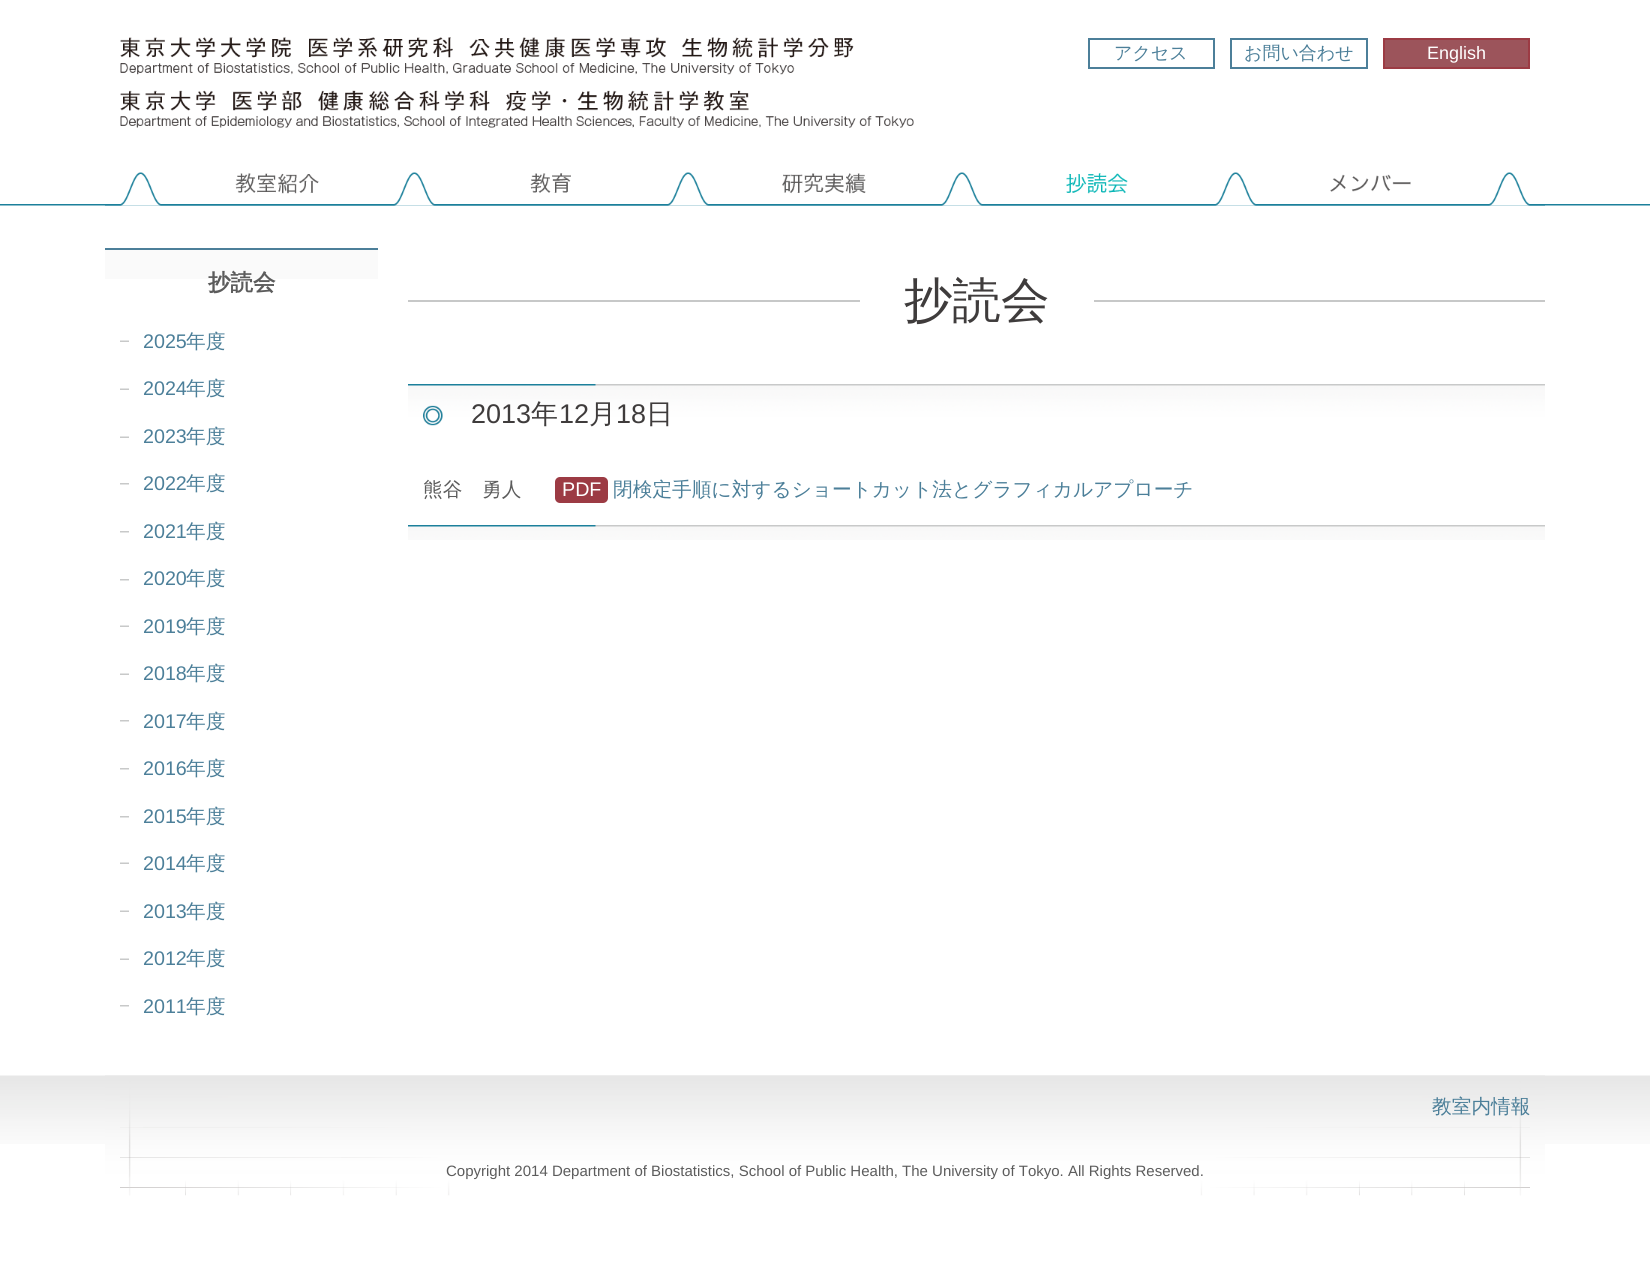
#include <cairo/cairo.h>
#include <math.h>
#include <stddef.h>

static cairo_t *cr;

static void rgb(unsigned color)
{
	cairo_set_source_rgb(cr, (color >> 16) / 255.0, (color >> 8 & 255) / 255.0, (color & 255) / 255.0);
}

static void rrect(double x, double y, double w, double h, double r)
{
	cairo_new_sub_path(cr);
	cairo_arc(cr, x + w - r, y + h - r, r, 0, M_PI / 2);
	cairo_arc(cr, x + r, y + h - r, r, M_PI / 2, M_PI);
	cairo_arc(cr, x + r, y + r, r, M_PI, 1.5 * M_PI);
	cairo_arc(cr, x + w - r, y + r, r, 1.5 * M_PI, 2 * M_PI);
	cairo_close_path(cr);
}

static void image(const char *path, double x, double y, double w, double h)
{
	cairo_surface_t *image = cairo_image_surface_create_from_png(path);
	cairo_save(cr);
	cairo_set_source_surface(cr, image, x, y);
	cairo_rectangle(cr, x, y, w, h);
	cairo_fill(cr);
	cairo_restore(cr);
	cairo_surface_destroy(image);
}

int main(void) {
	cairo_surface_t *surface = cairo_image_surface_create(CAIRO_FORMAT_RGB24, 1650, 1270);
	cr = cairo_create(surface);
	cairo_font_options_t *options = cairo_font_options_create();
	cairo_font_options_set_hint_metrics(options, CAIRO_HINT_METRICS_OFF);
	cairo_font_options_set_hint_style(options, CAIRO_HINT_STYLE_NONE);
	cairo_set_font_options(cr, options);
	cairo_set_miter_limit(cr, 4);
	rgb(0xffffff);
	cairo_paint(cr);
	image("img/1.png", 0, 204, 1650, 2);
	image("img/2.png", 120, 37, 794, 91);
	cairo_rectangle(cr, 1089, 39, 125, 29);
	rgb(0x4c7f99);
	cairo_stroke(cr);
	cairo_rectangle(cr, 1231, 39, 136, 29);
	cairo_stroke(cr);
	rgb(0x9c545b);
	cairo_rectangle(cr, 1384, 39, 145, 29);
	cairo_fill_preserve(cr);
	rgb(0x9c3b44);
	cairo_stroke(cr);
	image("img/3.png", 105, 172, 1440, 34);
	image("img/4.png", 235, 173, 84, 21);
	image("img/5.png", 530, 173, 41, 20);
	image("img/6.png", 782, 173, 84, 21);
	image("img/7.png", 1066, 173, 62, 21);
	image("img/8.png", 1330, 174, 81, 18);
	rgb(0xfafafa);
	cairo_rectangle(cr, 105, 250, 273, 29);
	cairo_fill(cr);
	rgb(0x4c7f99);
	cairo_rectangle(cr, 105, 248, 273, 2);
	cairo_fill(cr);
	image("img/9.png", 120, 340, 9, 2);
	image("img/9.png", 120, 388, 9, 2);
	image("img/9.png", 120, 436, 9, 2);
	image("img/10.png", 120, 483, 9, 2);
	image("img/10.png", 120, 531, 9, 2);
	image("img/10.png", 120, 579, 9, 2);
	image("img/9.png", 120, 625, 9, 2);
	image("img/9.png", 120, 673, 9, 2);
	image("img/10.png", 120, 720, 9, 2);
	image("img/10.png", 120, 768, 9, 2);
	image("img/10.png", 120, 816, 9, 2);
	image("img/9.png", 120, 862, 9, 2);
	image("img/9.png", 120, 910, 9, 2);
	image("img/9.png", 120, 958, 9, 2);
	image("img/10.png", 120, 1005, 9, 2);
	rgb(0xc7c8c8);
	cairo_rectangle(cr, 408, 300, 1137, 2);
	cairo_fill(cr);
	rgb(0xffffff);
	cairo_rectangle(cr, 860, 300, 234, 2);
	cairo_fill(cr);
	image("img/11.png", 408, 384, 1137, 42);
	rgb(0x9c3b44);
	rrect(555, 477, 53, 26, 5);
	cairo_fill(cr);
	image("img/12.png", 408, 525, 1137, 15);
	image("img/13.png", 0, 1075, 1650, 69);
	image("img/14.png", 105, 1075, 1440, 121);
	cairo_select_font_face(cr, "WenQuanYi Zen Hei Medium", CAIRO_FONT_SLANT_NORMAL, CAIRO_FONT_WEIGHT_NORMAL);
	cairo_set_font_size(cr, 18);
	rgb(0x4c7f99);
	cairo_move_to(cr, 1114, 59);
	cairo_show_text(cr, "アクセス");
	cairo_move_to(cr, 1244, 59);
	cairo_show_text(cr, "お問い合わせ");
	cairo_select_font_face(cr, "Liberation Sans", CAIRO_FONT_SLANT_NORMAL, CAIRO_FONT_WEIGHT_NORMAL);
	rgb(0xffffff);
	cairo_move_to(cr, 1427, 59);
	cairo_show_text(cr, "English");
	cairo_select_font_face(cr, "WenQuanYi Zen Hei", CAIRO_FONT_SLANT_NORMAL, CAIRO_FONT_WEIGHT_BOLD);
	cairo_set_font_size(cr, 22.5);
	rgb(0x5c5c5c);
	cairo_move_to(cr, 208, 290);
	cairo_show_text(cr, "抄読会");
	cairo_select_font_face(cr, "Liberation Sans", CAIRO_FONT_SLANT_NORMAL, CAIRO_FONT_WEIGHT_NORMAL);
	cairo_set_font_size(cr, 19.7);
	rgb(0x4c7f99);
	cairo_move_to(cr, 143, 348);
	cairo_show_text(cr, "2025");
	cairo_select_font_face(cr, "WenQuanYi Zen Hei Medium", CAIRO_FONT_SLANT_NORMAL, CAIRO_FONT_WEIGHT_NORMAL);
	cairo_move_to(cr, 186, 348);
	cairo_show_text(cr, "年度");
	cairo_select_font_face(cr, "Liberation Sans", CAIRO_FONT_SLANT_NORMAL, CAIRO_FONT_WEIGHT_NORMAL);
	cairo_move_to(cr, 143, 395);
	cairo_show_text(cr, "2024");
	cairo_select_font_face(cr, "WenQuanYi Zen Hei Medium", CAIRO_FONT_SLANT_NORMAL, CAIRO_FONT_WEIGHT_NORMAL);
	cairo_move_to(cr, 186, 395);
	cairo_show_text(cr, "年度");
	cairo_select_font_face(cr, "Liberation Sans", CAIRO_FONT_SLANT_NORMAL, CAIRO_FONT_WEIGHT_NORMAL);
	cairo_move_to(cr, 143, 443);
	cairo_show_text(cr, "2023");
	cairo_select_font_face(cr, "WenQuanYi Zen Hei Medium", CAIRO_FONT_SLANT_NORMAL, CAIRO_FONT_WEIGHT_NORMAL);
	cairo_move_to(cr, 186, 443);
	cairo_show_text(cr, "年度");
	cairo_select_font_face(cr, "Liberation Sans", CAIRO_FONT_SLANT_NORMAL, CAIRO_FONT_WEIGHT_NORMAL);
	cairo_move_to(cr, 143, 490);
	cairo_show_text(cr, "2022");
	cairo_select_font_face(cr, "WenQuanYi Zen Hei Medium", CAIRO_FONT_SLANT_NORMAL, CAIRO_FONT_WEIGHT_NORMAL);
	cairo_move_to(cr, 186, 490);
	cairo_show_text(cr, "年度");
	cairo_select_font_face(cr, "Liberation Sans", CAIRO_FONT_SLANT_NORMAL, CAIRO_FONT_WEIGHT_NORMAL);
	cairo_move_to(cr, 143, 538);
	cairo_show_text(cr, "2021");
	cairo_select_font_face(cr, "WenQuanYi Zen Hei Medium", CAIRO_FONT_SLANT_NORMAL, CAIRO_FONT_WEIGHT_NORMAL);
	cairo_move_to(cr, 186, 538);
	cairo_show_text(cr, "年度");
	cairo_select_font_face(cr, "Liberation Sans", CAIRO_FONT_SLANT_NORMAL, CAIRO_FONT_WEIGHT_NORMAL);
	cairo_move_to(cr, 143, 585);
	cairo_show_text(cr, "2020");
	cairo_select_font_face(cr, "WenQuanYi Zen Hei Medium", CAIRO_FONT_SLANT_NORMAL, CAIRO_FONT_WEIGHT_NORMAL);
	cairo_move_to(cr, 186, 585);
	cairo_show_text(cr, "年度");
	cairo_select_font_face(cr, "Liberation Sans", CAIRO_FONT_SLANT_NORMAL, CAIRO_FONT_WEIGHT_NORMAL);
	cairo_move_to(cr, 143, 633);
	cairo_show_text(cr, "2019");
	cairo_select_font_face(cr, "WenQuanYi Zen Hei Medium", CAIRO_FONT_SLANT_NORMAL, CAIRO_FONT_WEIGHT_NORMAL);
	cairo_move_to(cr, 186, 633);
	cairo_show_text(cr, "年度");
	cairo_select_font_face(cr, "Liberation Sans", CAIRO_FONT_SLANT_NORMAL, CAIRO_FONT_WEIGHT_NORMAL);
	cairo_move_to(cr, 143, 680);
	cairo_show_text(cr, "2018");
	cairo_select_font_face(cr, "WenQuanYi Zen Hei Medium", CAIRO_FONT_SLANT_NORMAL, CAIRO_FONT_WEIGHT_NORMAL);
	cairo_move_to(cr, 186, 680);
	cairo_show_text(cr, "年度");
	cairo_select_font_face(cr, "Liberation Sans", CAIRO_FONT_SLANT_NORMAL, CAIRO_FONT_WEIGHT_NORMAL);
	cairo_move_to(cr, 143, 728);
	cairo_show_text(cr, "2017");
	cairo_select_font_face(cr, "WenQuanYi Zen Hei Medium", CAIRO_FONT_SLANT_NORMAL, CAIRO_FONT_WEIGHT_NORMAL);
	cairo_move_to(cr, 186, 728);
	cairo_show_text(cr, "年度");
	cairo_select_font_face(cr, "Liberation Sans", CAIRO_FONT_SLANT_NORMAL, CAIRO_FONT_WEIGHT_NORMAL);
	cairo_move_to(cr, 143, 775);
	cairo_show_text(cr, "2016");
	cairo_select_font_face(cr, "WenQuanYi Zen Hei Medium", CAIRO_FONT_SLANT_NORMAL, CAIRO_FONT_WEIGHT_NORMAL);
	cairo_move_to(cr, 186, 775);
	cairo_show_text(cr, "年度");
	cairo_select_font_face(cr, "Liberation Sans", CAIRO_FONT_SLANT_NORMAL, CAIRO_FONT_WEIGHT_NORMAL);
	cairo_move_to(cr, 143, 823);
	cairo_show_text(cr, "2015");
	cairo_select_font_face(cr, "WenQuanYi Zen Hei Medium", CAIRO_FONT_SLANT_NORMAL, CAIRO_FONT_WEIGHT_NORMAL);
	cairo_move_to(cr, 186, 823);
	cairo_show_text(cr, "年度");
	cairo_select_font_face(cr, "Liberation Sans", CAIRO_FONT_SLANT_NORMAL, CAIRO_FONT_WEIGHT_NORMAL);
	cairo_move_to(cr, 143, 870);
	cairo_show_text(cr, "2014");
	cairo_select_font_face(cr, "WenQuanYi Zen Hei Medium", CAIRO_FONT_SLANT_NORMAL, CAIRO_FONT_WEIGHT_NORMAL);
	cairo_move_to(cr, 186, 870);
	cairo_show_text(cr, "年度");
	cairo_select_font_face(cr, "Liberation Sans", CAIRO_FONT_SLANT_NORMAL, CAIRO_FONT_WEIGHT_NORMAL);
	cairo_move_to(cr, 143, 918);
	cairo_show_text(cr, "2013");
	cairo_select_font_face(cr, "WenQuanYi Zen Hei Medium", CAIRO_FONT_SLANT_NORMAL, CAIRO_FONT_WEIGHT_NORMAL);
	cairo_move_to(cr, 186, 918);
	cairo_show_text(cr, "年度");
	cairo_select_font_face(cr, "Liberation Sans", CAIRO_FONT_SLANT_NORMAL, CAIRO_FONT_WEIGHT_NORMAL);
	cairo_move_to(cr, 143, 965);
	cairo_show_text(cr, "2012");
	cairo_select_font_face(cr, "WenQuanYi Zen Hei Medium", CAIRO_FONT_SLANT_NORMAL, CAIRO_FONT_WEIGHT_NORMAL);
	cairo_move_to(cr, 186, 965);
	cairo_show_text(cr, "年度");
	cairo_select_font_face(cr, "Liberation Sans", CAIRO_FONT_SLANT_NORMAL, CAIRO_FONT_WEIGHT_NORMAL);
	cairo_move_to(cr, 143, 1013);
	cairo_show_text(cr, "2011");
	cairo_select_font_face(cr, "WenQuanYi Zen Hei Medium", CAIRO_FONT_SLANT_NORMAL, CAIRO_FONT_WEIGHT_NORMAL);
	cairo_move_to(cr, 186, 1013);
	cairo_show_text(cr, "年度");
	cairo_set_font_size(cr, 48.5);
	rgb(0x3f3c3c);
	cairo_move_to(cr, 904, 317);
	cairo_show_text(cr, "抄読会");
	cairo_select_font_face(cr, "Liberation Sans", CAIRO_FONT_SLANT_NORMAL, CAIRO_FONT_WEIGHT_NORMAL);
	cairo_set_font_size(cr, 27);
	cairo_move_to(cr, 471, 423);
	cairo_show_text(cr, "2013");
	cairo_select_font_face(cr, "WenQuanYi Zen Hei Medium", CAIRO_FONT_SLANT_NORMAL, CAIRO_FONT_WEIGHT_NORMAL);
	cairo_move_to(cr, 531, 423);
	cairo_show_text(cr, "年");
	cairo_select_font_face(cr, "Liberation Sans", CAIRO_FONT_SLANT_NORMAL, CAIRO_FONT_WEIGHT_NORMAL);
	cairo_move_to(cr, 559, 423);
	cairo_show_text(cr, "12");
	cairo_select_font_face(cr, "WenQuanYi Zen Hei Medium", CAIRO_FONT_SLANT_NORMAL, CAIRO_FONT_WEIGHT_NORMAL);
	cairo_move_to(cr, 589, 423);
	cairo_show_text(cr, "月");
	cairo_select_font_face(cr, "Liberation Sans", CAIRO_FONT_SLANT_NORMAL, CAIRO_FONT_WEIGHT_NORMAL);
	cairo_move_to(cr, 616, 423);
	cairo_show_text(cr, "18");
	cairo_select_font_face(cr, "WenQuanYi Zen Hei Medium", CAIRO_FONT_SLANT_NORMAL, CAIRO_FONT_WEIGHT_NORMAL);
	cairo_move_to(cr, 646, 423);
	cairo_show_text(cr, "日");
	cairo_set_font_size(cr, 19.7);
	rgb(0x5c5c5c);
	cairo_move_to(cr, 423, 496);
	cairo_show_text(cr, "熊谷　勇人");
	cairo_select_font_face(cr, "Liberation Sans", CAIRO_FONT_SLANT_NORMAL, CAIRO_FONT_WEIGHT_NORMAL);
	rgb(0xffffff);
	cairo_move_to(cr, 562, 496);
	cairo_show_text(cr, "PDF");
	cairo_select_font_face(cr, "WenQuanYi Zen Hei Medium", CAIRO_FONT_SLANT_NORMAL, CAIRO_FONT_WEIGHT_NORMAL);
	rgb(0x4c7f99);
	cairo_move_to(cr, 613, 496);
	cairo_show_text(cr, "閉検定手順に対するショートカット法とグラフィカルアプローチ");
	cairo_move_to(cr, 1432, 1113);
	cairo_show_text(cr, "教室内情報");
	cairo_select_font_face(cr, "Liberation Sans", CAIRO_FONT_SLANT_NORMAL, CAIRO_FONT_WEIGHT_NORMAL);
	cairo_set_font_size(cr, 15);
	rgb(0x5c5c5c);
	cairo_move_to(cr, 446, 1176);
	cairo_show_text(cr, "Copyright 2014 Department of Biostatistics, School of Public Health, The University of Tokyo. All Rights Reserved.");
	cairo_surface_write_to_png(surface, "page.png");
	cairo_font_options_destroy(options);
	cairo_destroy(cr);
	cairo_surface_destroy(surface);
	return 0;
}
